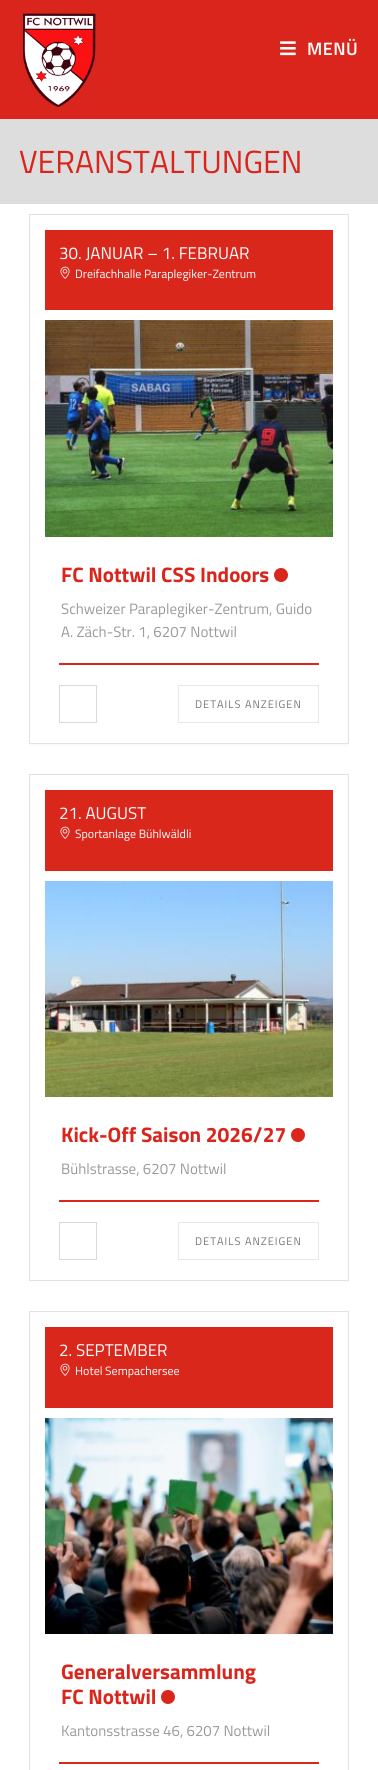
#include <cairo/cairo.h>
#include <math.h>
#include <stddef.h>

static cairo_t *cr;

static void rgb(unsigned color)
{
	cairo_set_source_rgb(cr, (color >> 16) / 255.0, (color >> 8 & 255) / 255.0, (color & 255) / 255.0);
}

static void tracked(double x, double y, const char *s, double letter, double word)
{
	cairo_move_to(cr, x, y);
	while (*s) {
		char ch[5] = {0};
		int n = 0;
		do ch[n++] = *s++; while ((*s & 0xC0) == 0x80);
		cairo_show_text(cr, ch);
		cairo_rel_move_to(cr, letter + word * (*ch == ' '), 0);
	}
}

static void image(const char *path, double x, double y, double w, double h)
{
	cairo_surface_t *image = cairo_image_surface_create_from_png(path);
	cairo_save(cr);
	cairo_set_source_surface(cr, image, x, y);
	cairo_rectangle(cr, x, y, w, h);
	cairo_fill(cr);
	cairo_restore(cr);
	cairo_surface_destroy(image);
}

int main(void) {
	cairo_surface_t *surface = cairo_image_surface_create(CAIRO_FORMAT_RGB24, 378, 1770);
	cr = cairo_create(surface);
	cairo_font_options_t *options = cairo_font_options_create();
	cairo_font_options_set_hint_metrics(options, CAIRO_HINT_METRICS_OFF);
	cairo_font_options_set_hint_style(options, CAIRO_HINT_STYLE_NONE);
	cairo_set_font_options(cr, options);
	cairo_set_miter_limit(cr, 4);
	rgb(0xffffff);
	cairo_paint(cr);
	rgb(0xda251c);
	cairo_rectangle(cr, 0, 0, 378, 119);
	cairo_fill(cr);
	image("img/1.png", 22, 13, 74, 94);
	image("img/2.png", 280, 41, 16, 15);
	rgb(0xdddddd);
	cairo_rectangle(cr, 0, 119, 378, 85);
	cairo_fill(cr);
	rgb(0xfbfbfb);
	cairo_rectangle(cr, 29, 744, 320, 2);
	cairo_fill(cr);
	cairo_rectangle(cr, 29.5, 214.5, 319, 529);
	rgb(0xe2e2e2);
	cairo_set_line_width(cr, 1);
	cairo_stroke(cr);
	rgb(0xda271c);
	cairo_rectangle(cr, 45, 230, 288, 80);
	cairo_fill(cr);
	image("img/3.png", 60, 266, 10, 13);
	image("img/4.png", 45, 320, 288, 217);
	cairo_arc(cr, 281, 575, 7, 0, 2 * M_PI);
	cairo_fill(cr);
	cairo_rectangle(cr, 59, 663, 260, 2);
	cairo_fill(cr);
	cairo_rectangle(cr, 59.5, 685.5, 37, 37);
	rgb(0xd9d9d9);
	cairo_stroke(cr);
	cairo_rectangle(cr, 178.5, 685.5, 140, 37);
	rgb(0xe8e8e8);
	cairo_stroke(cr);
	rgb(0xfbfbfb);
	cairo_rectangle(cr, 29, 1281, 320, 2);
	cairo_fill(cr);
	cairo_rectangle(cr, 29.5, 774.5, 319, 506);
	rgb(0xe2e2e2);
	cairo_stroke(cr);
	rgb(0xda271c);
	cairo_rectangle(cr, 45, 790, 288, 81);
	cairo_fill(cr);
	image("img/3.png", 60, 826, 10, 13);
	image("img/5.png", 45, 881, 288, 216);
	cairo_arc(cr, 298, 1135, 7, 0, 2 * M_PI);
	cairo_fill(cr);
	cairo_rectangle(cr, 59, 1200, 260, 2);
	cairo_fill(cr);
	cairo_rectangle(cr, 59.5, 1222.5, 37, 37);
	rgb(0xd9d9d9);
	cairo_stroke(cr);
	cairo_rectangle(cr, 178.5, 1222.5, 140, 37);
	rgb(0xe8e8e8);
	cairo_stroke(cr);
	cairo_rectangle(cr, 29.5, 1311.5, 319, 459);
	rgb(0xe2e2e2);
	cairo_stroke(cr);
	rgb(0xda271c);
	cairo_rectangle(cr, 45, 1327, 288, 81);
	cairo_fill(cr);
	image("img/3.png", 60, 1363, 10, 13);
	image("img/6.png", 45, 1418, 288, 216);
	cairo_arc(cr, 168, 1697, 7, 0, 2 * M_PI);
	cairo_fill(cr);
	cairo_rectangle(cr, 59, 1762, 260, 2);
	cairo_fill(cr);
	cairo_select_font_face(cr, "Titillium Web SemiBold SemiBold", CAIRO_FONT_SLANT_NORMAL, CAIRO_FONT_WEIGHT_NORMAL);
	cairo_set_font_size(cr, 18);
	rgb(0xffffff);
	tracked(307, 55, "MENÜ", 0.5, 0);
	cairo_select_font_face(cr, "Titillium Web", CAIRO_FONT_SLANT_NORMAL, CAIRO_FONT_WEIGHT_NORMAL);
	cairo_set_font_size(cr, 32);
	rgb(0xda251c);
	cairo_move_to(cr, 19, 173);
	cairo_show_text(cr, "VERANSTALTUNGEN");
	cairo_set_font_size(cr, 17);
	rgb(0xffffff);
	cairo_move_to(cr, 59, 259);
	cairo_show_text(cr, "30. JANUAR – 1. FEBRUAR");
	cairo_set_font_size(cr, 12);
	cairo_move_to(cr, 75, 278);
	cairo_show_text(cr, "Dreifachhalle Paraplegiker-Zentrum");
	cairo_select_font_face(cr, "Titillium Web", CAIRO_FONT_SLANT_NORMAL, CAIRO_FONT_WEIGHT_BOLD);
	cairo_set_font_size(cr, 21);
	rgb(0xda251c);
	cairo_move_to(cr, 61, 582);
	cairo_show_text(cr, "FC Nottwil CSS Indoors");
	cairo_select_font_face(cr, "Titillium Web", CAIRO_FONT_SLANT_NORMAL, CAIRO_FONT_WEIGHT_NORMAL);
	cairo_set_font_size(cr, 15);
	rgb(0x9a9a9a);
	cairo_move_to(cr, 61, 614);
	cairo_show_text(cr, "Schweizer Paraplegiker-Zentrum, Guido");
	cairo_move_to(cr, 61, 637);
	cairo_show_text(cr, "A. Zäch-Str. 1, 6207 Nottwil");
	cairo_set_font_size(cr, 11);
	rgb(0x767676);
	tracked(195, 708, "DETAILS ANZEIGEN", 1, 0);
	cairo_set_font_size(cr, 17);
	rgb(0xffffff);
	cairo_move_to(cr, 59, 819);
	cairo_show_text(cr, "21. AUGUST");
	cairo_set_font_size(cr, 12);
	cairo_move_to(cr, 75, 838);
	cairo_show_text(cr, "Sportanlage Bühlwäldli");
	cairo_select_font_face(cr, "Titillium Web", CAIRO_FONT_SLANT_NORMAL, CAIRO_FONT_WEIGHT_BOLD);
	cairo_set_font_size(cr, 21);
	rgb(0xda251c);
	cairo_move_to(cr, 61, 1142);
	cairo_show_text(cr, "Kick-Off Saison 2026/27");
	cairo_select_font_face(cr, "Titillium Web", CAIRO_FONT_SLANT_NORMAL, CAIRO_FONT_WEIGHT_NORMAL);
	cairo_set_font_size(cr, 15);
	rgb(0x9a9a9a);
	cairo_move_to(cr, 61, 1174);
	cairo_show_text(cr, "Bühlstrasse, 6207 Nottwil");
	cairo_set_font_size(cr, 11);
	rgb(0x767676);
	tracked(195, 1245, "DETAILS ANZEIGEN", 1, 0);
	cairo_set_font_size(cr, 17);
	rgb(0xffffff);
	cairo_move_to(cr, 59, 1356);
	cairo_show_text(cr, "2. SEPTEMBER");
	cairo_set_font_size(cr, 12);
	cairo_move_to(cr, 75, 1375);
	cairo_show_text(cr, "Hotel Sempachersee");
	cairo_select_font_face(cr, "Titillium Web", CAIRO_FONT_SLANT_NORMAL, CAIRO_FONT_WEIGHT_BOLD);
	cairo_set_font_size(cr, 21);
	rgb(0xda251c);
	cairo_move_to(cr, 61, 1679);
	cairo_show_text(cr, "Generalversammlung");
	cairo_move_to(cr, 61, 1704);
	cairo_show_text(cr, "FC Nottwil");
	cairo_select_font_face(cr, "Titillium Web", CAIRO_FONT_SLANT_NORMAL, CAIRO_FONT_WEIGHT_NORMAL);
	cairo_set_font_size(cr, 15);
	rgb(0x9a9a9a);
	cairo_move_to(cr, 61, 1736);
	cairo_show_text(cr, "Kantonsstrasse 46, 6207 Nottwil");
	cairo_surface_write_to_png(surface, "page.png");
	cairo_font_options_destroy(options);
	cairo_destroy(cr);
	cairo_surface_destroy(surface);
	return 0;
}
